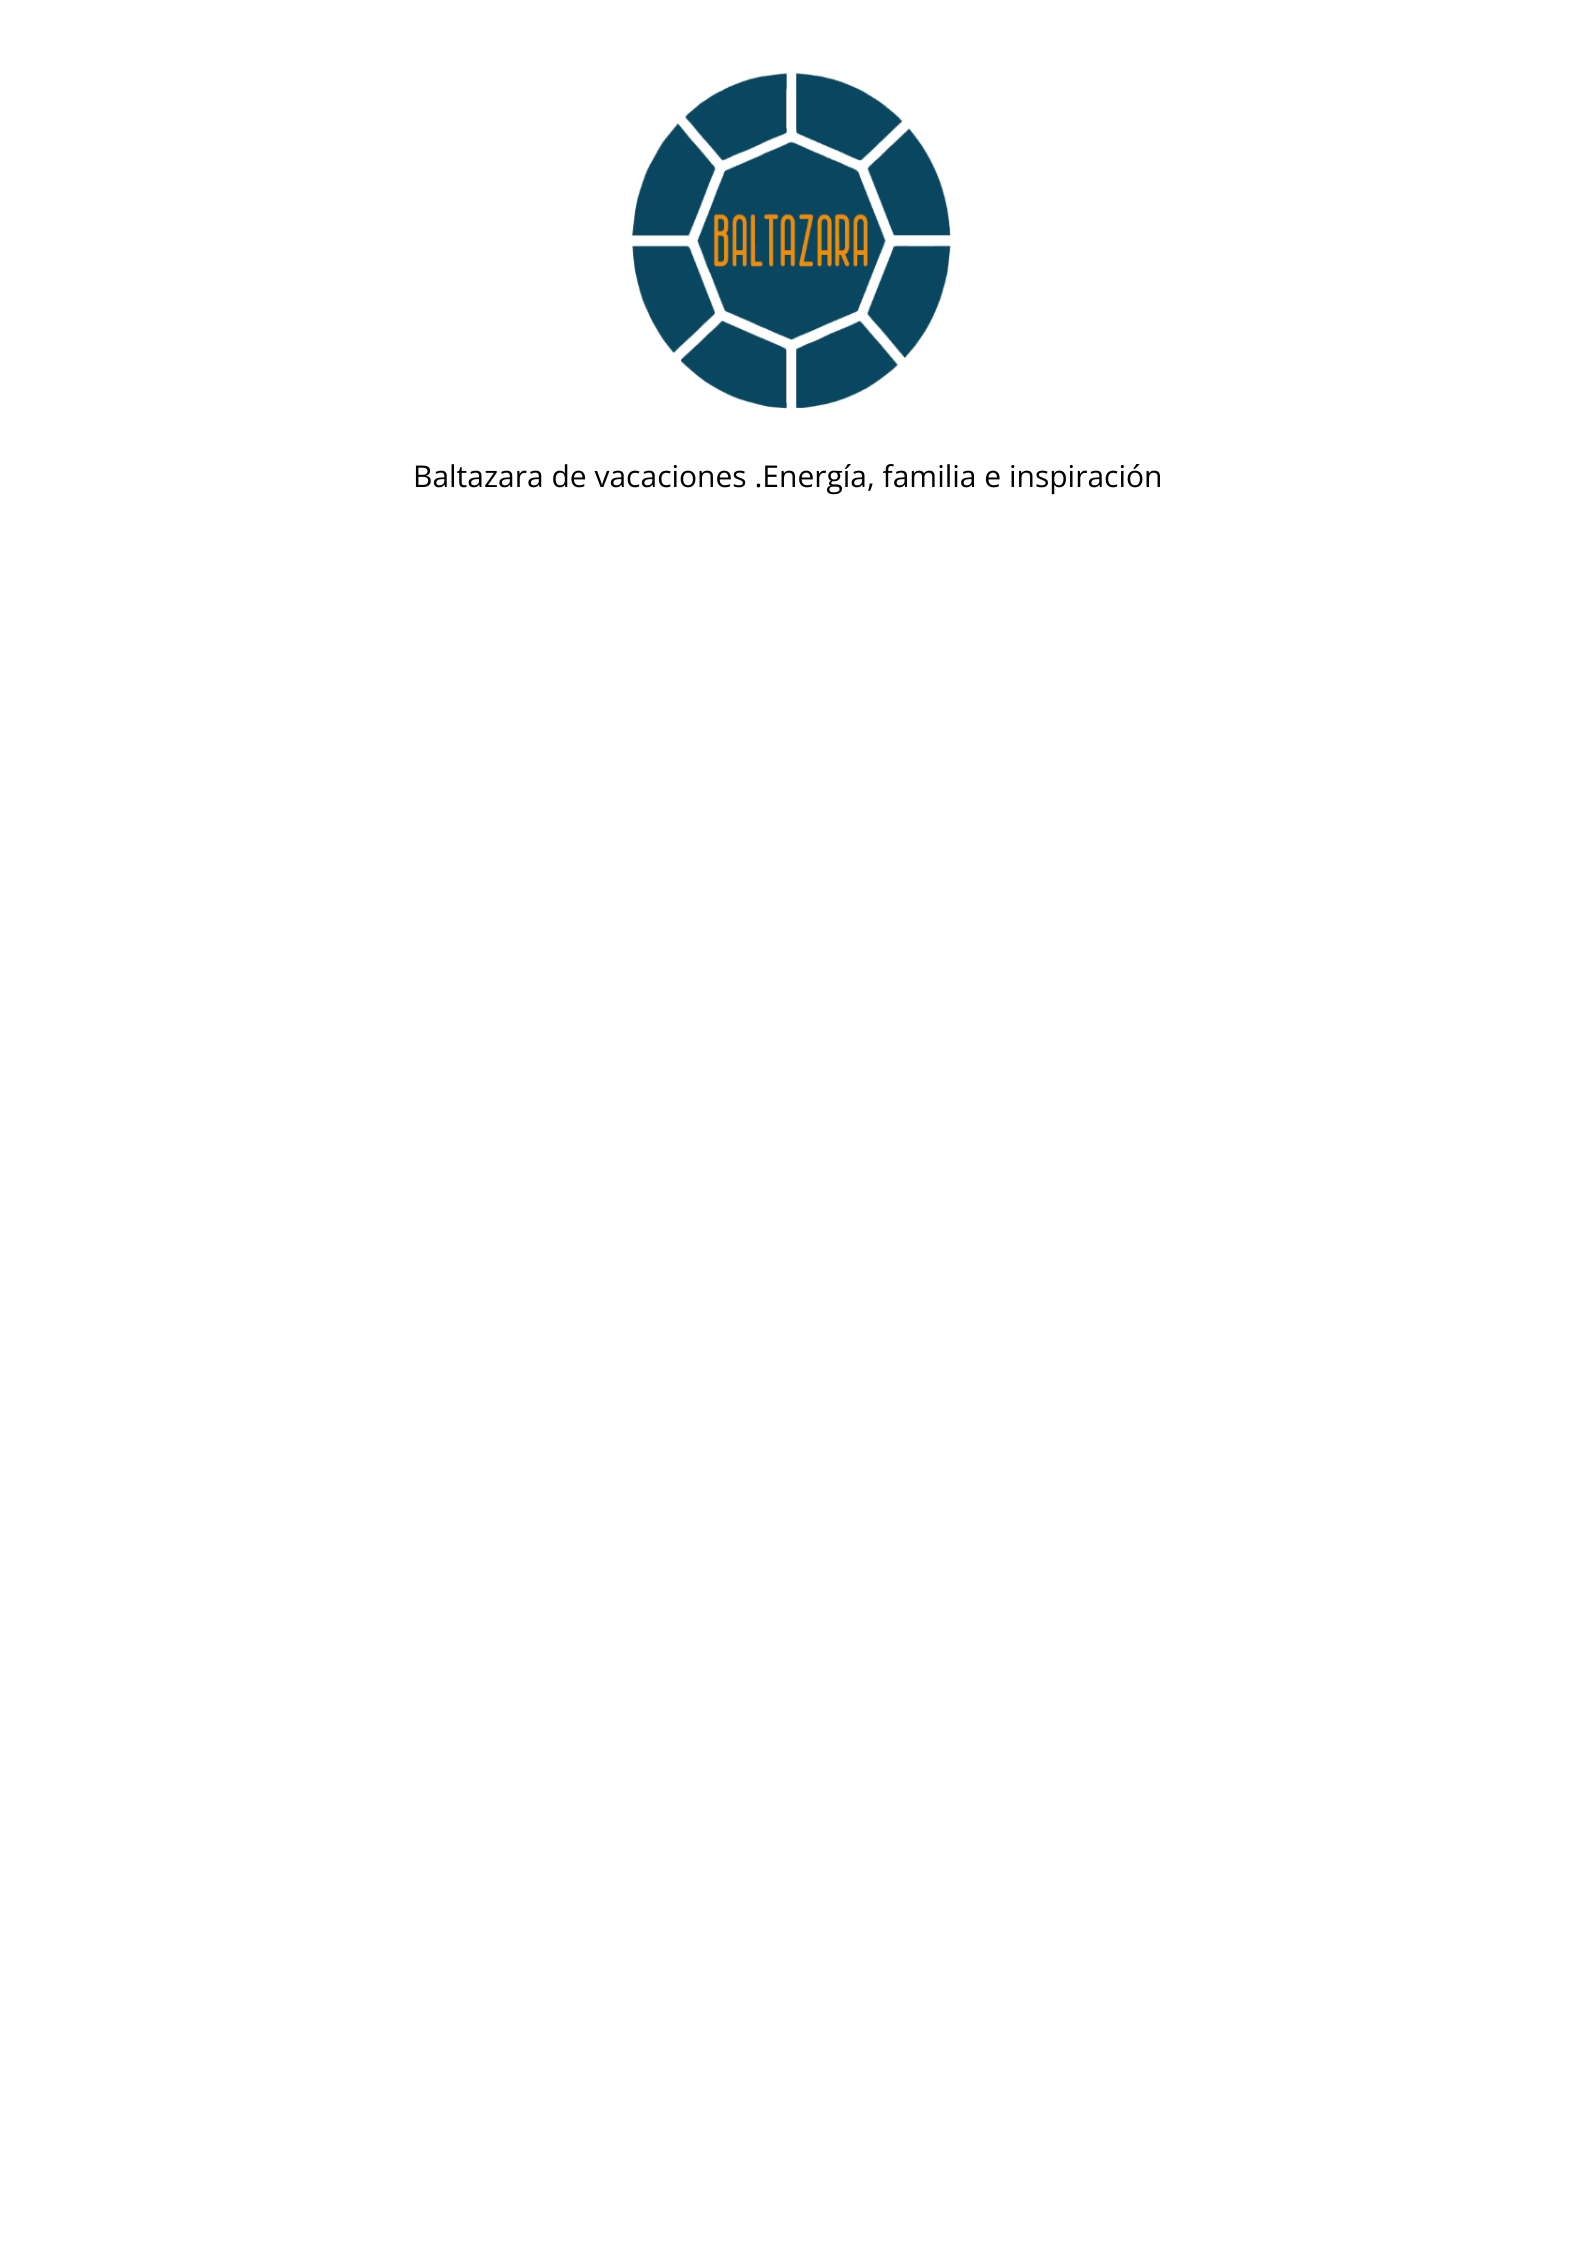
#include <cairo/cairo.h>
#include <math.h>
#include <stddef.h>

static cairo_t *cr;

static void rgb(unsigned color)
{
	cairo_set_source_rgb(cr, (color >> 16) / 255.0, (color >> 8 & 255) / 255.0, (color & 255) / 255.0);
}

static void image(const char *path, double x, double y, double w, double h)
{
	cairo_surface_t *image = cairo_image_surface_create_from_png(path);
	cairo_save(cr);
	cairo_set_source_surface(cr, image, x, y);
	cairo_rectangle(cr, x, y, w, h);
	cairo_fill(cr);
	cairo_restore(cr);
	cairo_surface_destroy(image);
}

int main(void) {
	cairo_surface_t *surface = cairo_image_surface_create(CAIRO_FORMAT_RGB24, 1576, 2249);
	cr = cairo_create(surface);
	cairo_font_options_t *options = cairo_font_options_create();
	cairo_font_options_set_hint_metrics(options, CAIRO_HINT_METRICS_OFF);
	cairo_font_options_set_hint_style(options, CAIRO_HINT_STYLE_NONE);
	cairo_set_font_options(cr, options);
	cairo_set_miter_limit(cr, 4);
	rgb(0xffffff);
	cairo_paint(cr);
	image("img/1.png", 631, 72, 320, 337);
	cairo_select_font_face(cr, "Open Sans", CAIRO_FONT_SLANT_NORMAL, CAIRO_FONT_WEIGHT_NORMAL);
	cairo_set_font_size(cr, 30);
	rgb(0x000000);
	cairo_move_to(cr, 413, 487);
	cairo_show_text(cr, "Baltazara de vacaciones .Energía, familia e inspiración");
	cairo_surface_write_to_png(surface, "page.png");
	cairo_font_options_destroy(options);
	cairo_destroy(cr);
	cairo_surface_destroy(surface);
	return 0;
}
